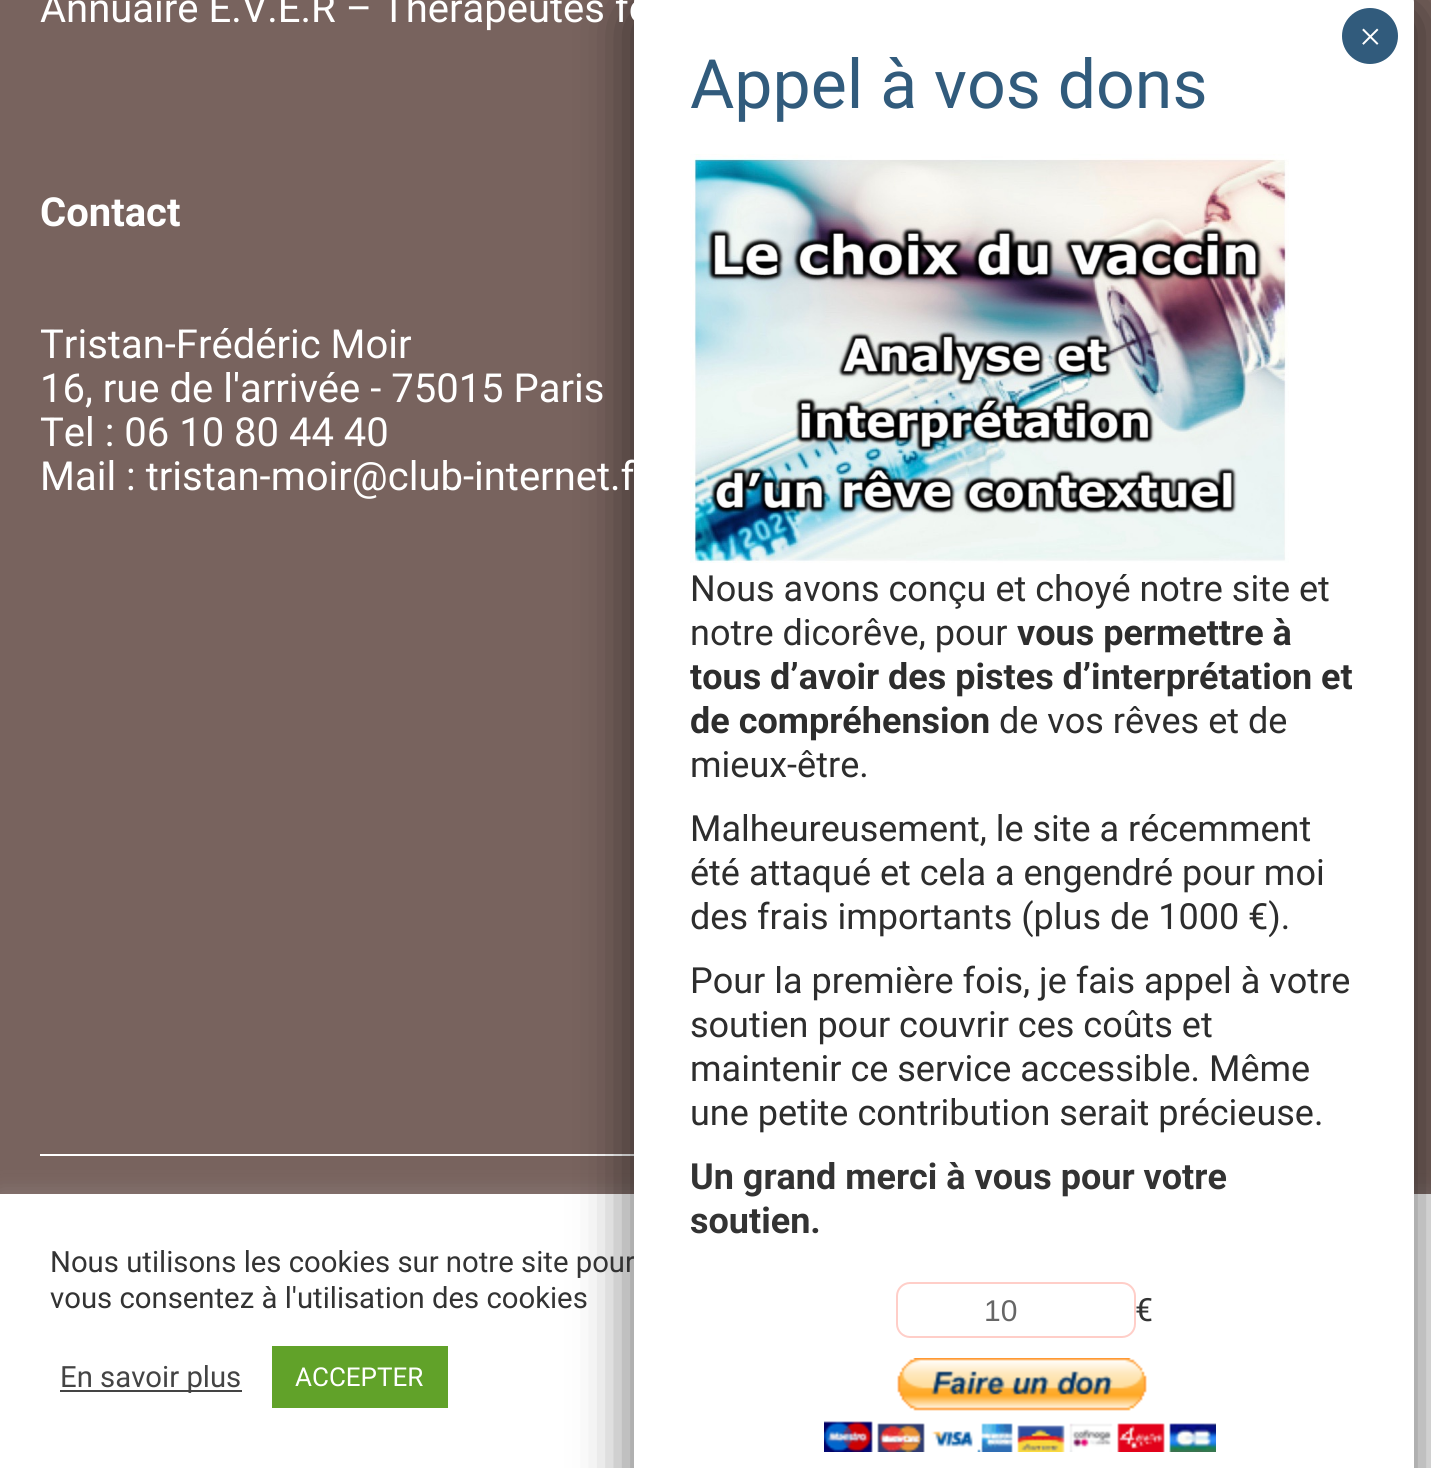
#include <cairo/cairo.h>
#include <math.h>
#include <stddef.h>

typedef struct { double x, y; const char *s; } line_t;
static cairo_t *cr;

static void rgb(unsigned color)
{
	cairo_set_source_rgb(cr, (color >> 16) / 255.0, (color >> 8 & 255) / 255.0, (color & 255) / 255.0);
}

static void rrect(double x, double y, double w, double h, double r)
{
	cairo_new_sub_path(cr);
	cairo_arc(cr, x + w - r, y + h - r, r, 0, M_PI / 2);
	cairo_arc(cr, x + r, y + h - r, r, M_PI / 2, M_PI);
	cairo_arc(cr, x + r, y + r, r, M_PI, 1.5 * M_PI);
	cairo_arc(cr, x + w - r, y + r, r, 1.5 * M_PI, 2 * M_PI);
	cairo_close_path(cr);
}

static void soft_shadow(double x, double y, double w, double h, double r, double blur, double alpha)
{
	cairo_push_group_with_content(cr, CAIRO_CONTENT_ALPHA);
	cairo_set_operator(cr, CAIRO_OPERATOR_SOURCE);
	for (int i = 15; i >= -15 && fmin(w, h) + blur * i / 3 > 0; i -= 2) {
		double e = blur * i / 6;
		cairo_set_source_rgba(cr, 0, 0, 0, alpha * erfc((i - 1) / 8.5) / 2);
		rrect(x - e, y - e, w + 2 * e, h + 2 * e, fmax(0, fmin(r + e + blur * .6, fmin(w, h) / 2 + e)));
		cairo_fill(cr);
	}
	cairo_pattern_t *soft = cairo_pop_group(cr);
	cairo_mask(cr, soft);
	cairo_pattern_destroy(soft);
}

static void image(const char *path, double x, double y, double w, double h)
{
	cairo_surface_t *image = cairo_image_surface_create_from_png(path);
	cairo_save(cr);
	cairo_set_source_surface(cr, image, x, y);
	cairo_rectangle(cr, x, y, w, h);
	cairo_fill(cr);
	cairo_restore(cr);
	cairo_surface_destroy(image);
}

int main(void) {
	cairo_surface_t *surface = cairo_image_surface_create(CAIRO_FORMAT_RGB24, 1431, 1468);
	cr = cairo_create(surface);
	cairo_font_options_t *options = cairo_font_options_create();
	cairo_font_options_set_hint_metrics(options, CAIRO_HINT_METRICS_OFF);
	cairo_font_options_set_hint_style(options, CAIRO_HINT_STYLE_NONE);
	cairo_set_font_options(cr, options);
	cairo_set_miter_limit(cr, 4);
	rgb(0x78635e);
	cairo_paint(cr);
	rgb(0xffffff);
	cairo_rectangle(cr, 40, 1154, 594, 2);
	cairo_fill(cr);
	rgb(0xacabab);
	soft_shadow(0, 1192, 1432, 274, 0, 10, 0.3);
	rgb(0xffffff);
	cairo_rectangle(cr, 0, 1194, 1431, 274);
	cairo_fill(cr);
	rgb(0x020202);
	soft_shadow(626, 4, 796, 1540, 18, 25, 0.5);
	rgb(0x444444);
	cairo_rectangle(cr, 60, 1390, 182, 2);
	cairo_fill(cr);
	rgb(0x61a229);
	cairo_rectangle(cr, 272, 1346, 176, 62);
	cairo_fill(cr);
	cairo_select_font_face(cr, "Roboto", CAIRO_FONT_SLANT_NORMAL, CAIRO_FONT_WEIGHT_NORMAL);
	cairo_set_font_size(cr, 40);
	rgb(0xffffff);
	cairo_move_to(cr, 40, 22);
	cairo_show_text(cr, "Annuaire E.V.E.R – Thérapeutes fo");
	cairo_select_font_face(cr, "Roboto", CAIRO_FONT_SLANT_NORMAL, CAIRO_FONT_WEIGHT_BOLD);
	cairo_move_to(cr, 40, 226);
	cairo_show_text(cr, "Contact");
	cairo_select_font_face(cr, "Roboto", CAIRO_FONT_SLANT_NORMAL, CAIRO_FONT_WEIGHT_NORMAL);
	{
		static const line_t items[] = {
			{40, 358, "Tristan-Frédéric Moir"},
			{40, 402, "16, rue de l'arrivée - 75015 Paris"},
			{40, 446, "Tel : 06 10 80 44 40"},
			{40, 490, "Mail : tristan-moir@club-internet.f"},
		};
		for (size_t i = 0; i < sizeof items / sizeof *items; i++) {
			cairo_move_to(cr, items[i].x, items[i].y);
			cairo_show_text(cr, items[i].s);
		}
	}
	cairo_set_font_size(cr, 29.3);
	rgb(0x333333);
	cairo_move_to(cr, 50, 1272);
	cairo_show_text(cr, "Nous utilisons les cookies sur notre site pour");
	rgb(0xffffff);
	rrect(634, -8, 780, 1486, 10);
	cairo_fill(cr);
	rgb(0x315b7c);
	cairo_arc(cr, 1370, 36, 28, 0, 2 * M_PI);
	cairo_fill(cr);
	cairo_select_font_face(cr, "Liberation Serif", CAIRO_FONT_SLANT_NORMAL, CAIRO_FONT_WEIGHT_NORMAL);
	cairo_set_font_size(cr, 40);
	rgb(0xffffff);
	cairo_move_to(cr, 1359, 50);
	cairo_show_text(cr, "×");
	image("img/2.png", 824, 1358, 392, 94);
	cairo_select_font_face(cr, "Roboto", CAIRO_FONT_SLANT_NORMAL, CAIRO_FONT_WEIGHT_NORMAL);
	cairo_set_font_size(cr, 32);
	rgb(0x333333);
	cairo_move_to(cr, 1135, 1321);
	cairo_show_text(cr, "€");
	rrect(897, 1283, 238, 54, 13);
	rgb(0xffcec8);
	cairo_stroke(cr);
	cairo_select_font_face(cr, "Liberation Sans", CAIRO_FONT_SLANT_NORMAL, CAIRO_FONT_WEIGHT_NORMAL);
	cairo_set_font_size(cr, 30);
	rgb(0x666666);
	cairo_move_to(cr, 984, 1321);
	cairo_show_text(cr, "10");
	cairo_select_font_face(cr, "Roboto", CAIRO_FONT_SLANT_NORMAL, CAIRO_FONT_WEIGHT_BOLD);
	cairo_set_font_size(cr, 36);
	rgb(0x333333);
	cairo_move_to(cr, 690, 1233);
	cairo_show_text(cr, "soutien.");
	cairo_move_to(cr, 690, 1189);
	cairo_show_text(cr, "Un grand merci à vous pour votre");
	cairo_select_font_face(cr, "Roboto", CAIRO_FONT_SLANT_NORMAL, CAIRO_FONT_WEIGHT_NORMAL);
	rgb(0x2d2d2d);
	{
		static const line_t items[] = {
			{690, 1125, "une petite contribution serait précieuse."},
			{690, 1081, "maintenir ce service accessible. Même"},
			{690, 1037, "soutien pour couvrir ces coûts et"},
			{690, 993, "Pour la première fois, je fais appel à votre"},
			{690, 929, "des frais importants (plus de 1000 €)."},
			{690, 885, "été attaqué et cela a engendré pour moi"},
			{690, 841, "Malheureusement, le site a récemment"},
			{690, 777, "mieux-être."},
			{999, 733, "de vos rêves et de"},
		};
		for (size_t i = 0; i < sizeof items / sizeof *items; i++) {
			cairo_move_to(cr, items[i].x, items[i].y);
			cairo_show_text(cr, items[i].s);
		}
	}
	cairo_select_font_face(cr, "Roboto", CAIRO_FONT_SLANT_NORMAL, CAIRO_FONT_WEIGHT_BOLD);
	{
		static const line_t items[] = {
			{690, 733, "de compréhension"},
			{690, 689, "tous d’avoir des pistes d’interprétation et"},
			{1017, 645, "vous permettre à"},
		};
		for (size_t i = 0; i < sizeof items / sizeof *items; i++) {
			cairo_move_to(cr, items[i].x, items[i].y);
			cairo_show_text(cr, items[i].s);
		}
	}
	cairo_select_font_face(cr, "Roboto", CAIRO_FONT_SLANT_NORMAL, CAIRO_FONT_WEIGHT_NORMAL);
	cairo_move_to(cr, 690, 645);
	cairo_show_text(cr, "notre dicorêve, pour");
	cairo_move_to(cr, 690, 601);
	cairo_show_text(cr, "Nous avons conçu et choyé notre site et");
	image("img/1.png", 690, 154, 599, 409);
	cairo_set_font_size(cr, 68);
	rgb(0x315b7c);
	cairo_move_to(cr, 690, 108);
	cairo_show_text(cr, "Appel à vos dons");
	cairo_set_font_size(cr, 29.3);
	rgb(0x333333);
	cairo_move_to(cr, 50, 1308);
	cairo_show_text(cr, "vous consentez à l'utilisation des cookies");
	rgb(0x444444);
	cairo_move_to(cr, 60, 1387);
	cairo_show_text(cr, "En savoir plus");
	cairo_set_font_size(cr, 26);
	rgb(0xffffff);
	cairo_move_to(cr, 295, 1386);
	cairo_show_text(cr, "ACCEPTER");
	cairo_surface_write_to_png(surface, "page.png");
	cairo_font_options_destroy(options);
	cairo_destroy(cr);
	cairo_surface_destroy(surface);
	return 0;
}
